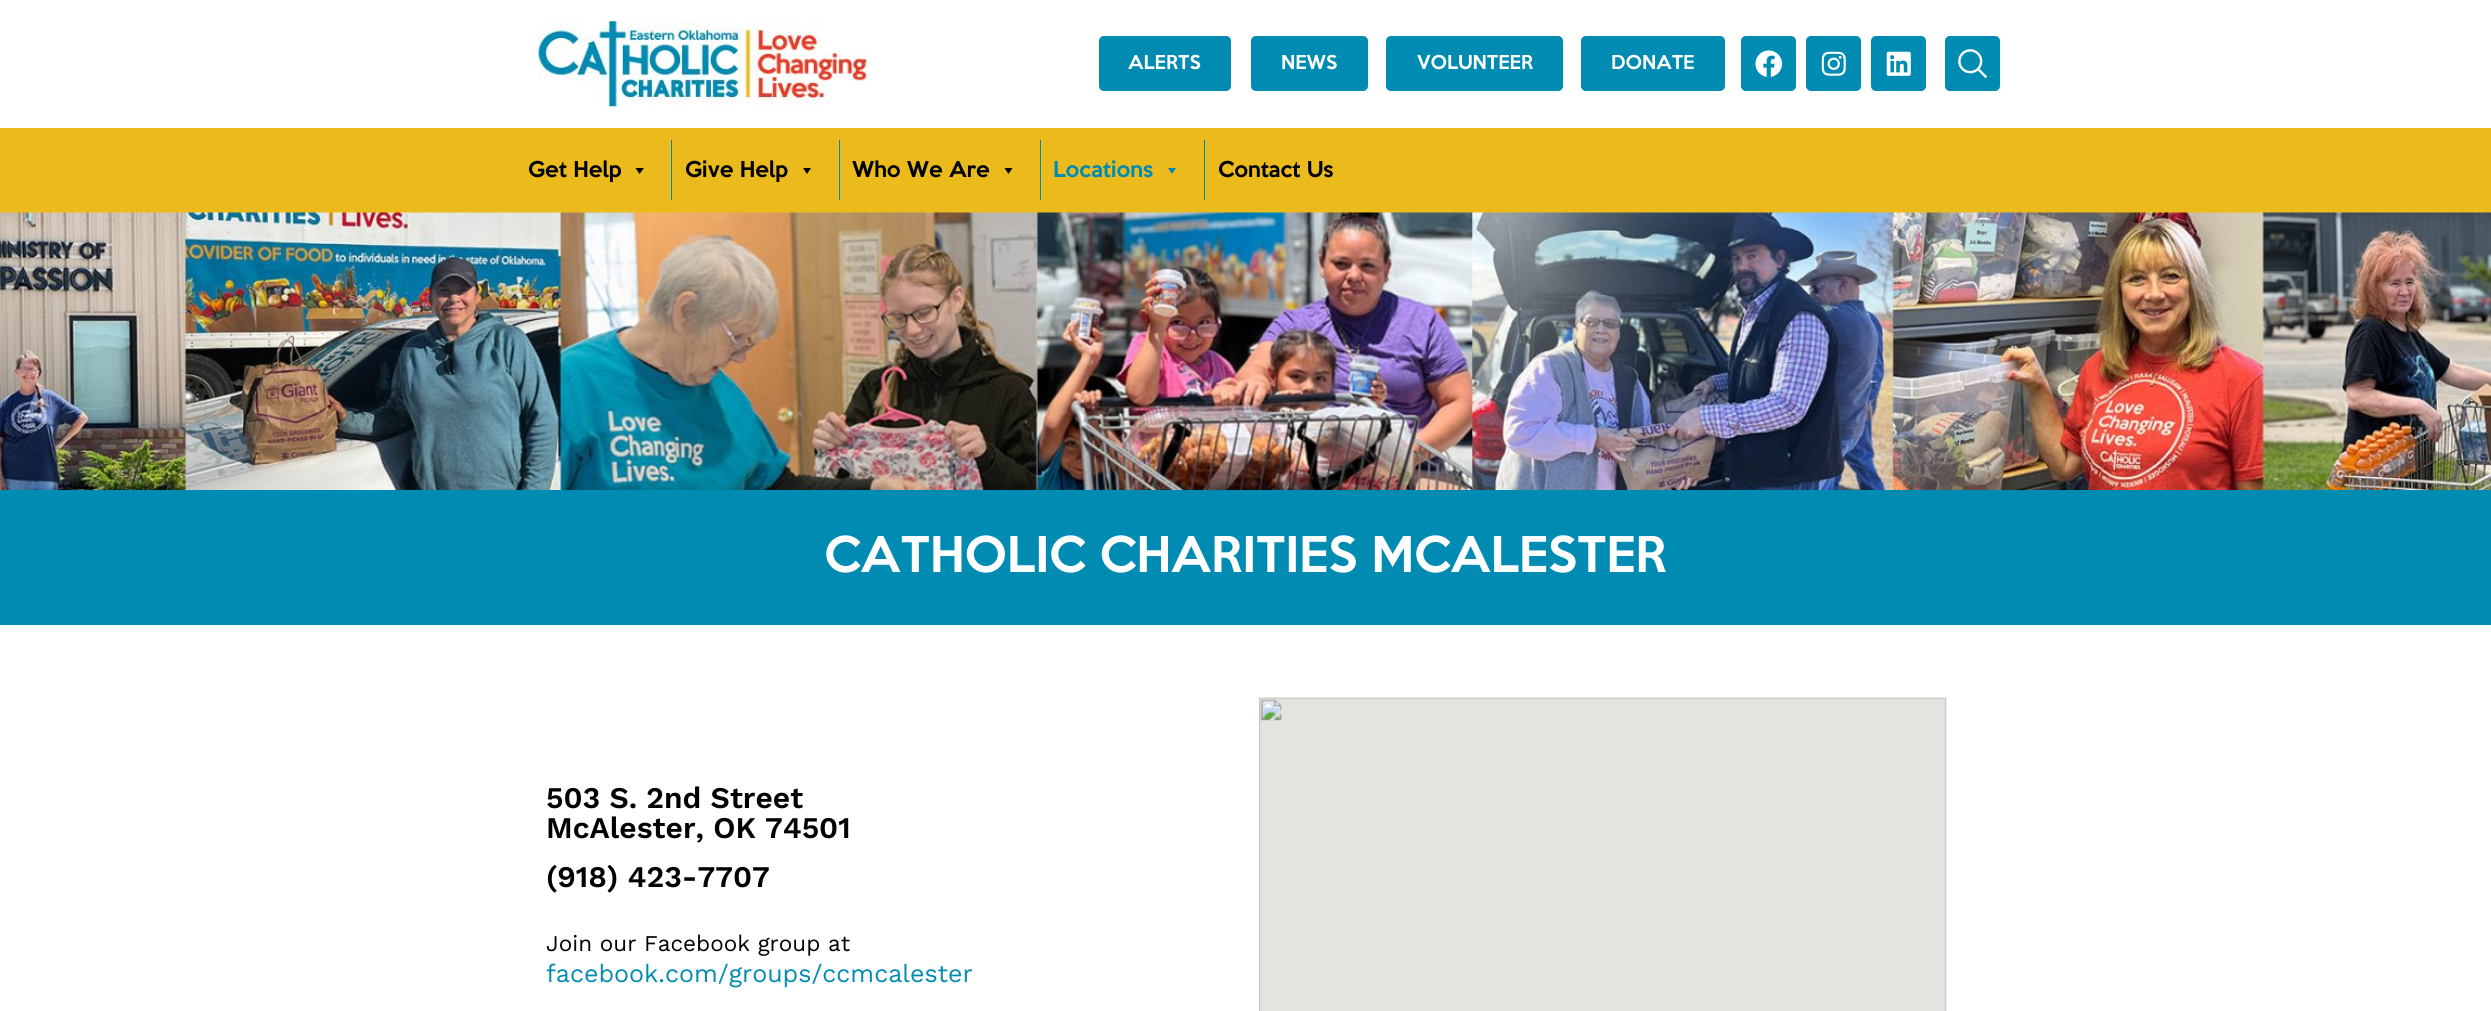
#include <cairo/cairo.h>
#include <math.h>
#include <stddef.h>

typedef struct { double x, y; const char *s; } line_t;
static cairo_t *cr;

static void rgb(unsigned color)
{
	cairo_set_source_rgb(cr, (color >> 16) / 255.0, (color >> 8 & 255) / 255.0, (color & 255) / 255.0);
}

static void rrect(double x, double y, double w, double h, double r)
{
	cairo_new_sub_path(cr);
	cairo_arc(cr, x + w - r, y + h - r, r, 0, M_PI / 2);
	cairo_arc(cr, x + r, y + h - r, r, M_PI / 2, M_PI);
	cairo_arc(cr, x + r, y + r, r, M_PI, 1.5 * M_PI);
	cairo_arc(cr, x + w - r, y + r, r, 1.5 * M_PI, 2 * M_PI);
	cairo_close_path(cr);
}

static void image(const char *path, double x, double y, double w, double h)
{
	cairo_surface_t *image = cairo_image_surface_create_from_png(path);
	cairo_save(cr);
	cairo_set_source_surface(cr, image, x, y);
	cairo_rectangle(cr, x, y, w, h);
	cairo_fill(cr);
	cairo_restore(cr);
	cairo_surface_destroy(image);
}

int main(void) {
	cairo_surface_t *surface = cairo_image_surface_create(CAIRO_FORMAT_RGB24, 2491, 1011);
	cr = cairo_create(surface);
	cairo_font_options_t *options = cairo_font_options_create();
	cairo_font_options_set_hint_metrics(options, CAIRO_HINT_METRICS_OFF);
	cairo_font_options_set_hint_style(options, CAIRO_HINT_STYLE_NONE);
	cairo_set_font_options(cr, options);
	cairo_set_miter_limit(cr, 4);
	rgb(0xffffff);
	cairo_paint(cr);
	image("img/1.png", 538, 21, 329, 86);
	rgb(0x008bb3);
	rrect(1099, 36, 132, 55, 5);
	cairo_fill(cr);
	rrect(1251, 36, 117, 55, 5);
	cairo_fill(cr);
	rrect(1386, 36, 177, 55, 5);
	cairo_fill(cr);
	rrect(1581, 36, 144, 55, 5);
	cairo_fill(cr);
	rrect(1741, 36, 55, 55, 5);
	cairo_fill(cr);
	image("img/2.png", 1755, 50, 28, 27);
	rrect(1806, 36, 55, 55, 5);
	cairo_fill(cr);
	image("img/3.png", 1821, 51, 25, 25);
	rrect(1871, 36, 55, 55, 5);
	cairo_fill(cr);
	image("img/4.png", 1886, 51, 25, 25);
	rrect(1945, 36, 55, 55, 5);
	cairo_fill(cr);
	image("img/5.png", 1958, 49, 29, 29);
	rgb(0xebbb1e);
	cairo_rectangle(cr, 0, 128, 2491, 85);
	cairo_fill(cr);
	rgb(0x000000);
	cairo_new_path(cr);
	cairo_move_to(cr, 644, 168);
	cairo_line_to(cr, 639.5, 174);
	cairo_line_to(cr, 635.5, 168);
	cairo_close_path(cr);
	cairo_fill(cr);
	rgb(0x008bb3);
	cairo_rectangle(cr, 671, 140, 1, 60);
	cairo_fill(cr);
	rgb(0x000000);
	cairo_new_path(cr);
	cairo_move_to(cr, 811, 168);
	cairo_line_to(cr, 807, 174);
	cairo_line_to(cr, 803, 168);
	cairo_close_path(cr);
	cairo_fill(cr);
	rgb(0x008bb3);
	cairo_rectangle(cr, 839, 140, 1, 60);
	cairo_fill(cr);
	rgb(0x000000);
	cairo_new_path(cr);
	cairo_move_to(cr, 1012.5, 168);
	cairo_line_to(cr, 1008.5, 174);
	cairo_line_to(cr, 1004.5, 168);
	cairo_close_path(cr);
	cairo_fill(cr);
	rgb(0x008bb3);
	cairo_rectangle(cr, 1040, 140, 1, 60);
	cairo_fill(cr);
	cairo_new_path(cr);
	cairo_move_to(cr, 1176, 168);
	cairo_line_to(cr, 1172, 174);
	cairo_line_to(cr, 1168, 168);
	cairo_close_path(cr);
	cairo_fill(cr);
	cairo_rectangle(cr, 1204, 140, 1, 60);
	cairo_fill(cr);
	image("img/6.png", 0, 212, 2491, 278);
	cairo_rectangle(cr, 0, 490, 2491, 135);
	cairo_fill(cr);
	image("img/7.png", 1259, 697, 688, 314);
	cairo_select_font_face(cr, "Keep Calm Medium", CAIRO_FONT_SLANT_NORMAL, CAIRO_FONT_WEIGHT_NORMAL);
	cairo_set_font_size(cr, 17.5);
	rgb(0xffffff);
	{
		static const line_t items[] = {
			{1128, 69, "ALERTS"},
			{1281, 69, "NEWS"},
			{1417, 69, "VOLUNTEER"},
			{1611, 69, "DONATE"},
		};
		for (size_t i = 0; i < sizeof items / sizeof *items; i++) {
			cairo_move_to(cr, items[i].x, items[i].y);
			cairo_show_text(cr, items[i].s);
		}
	}
	cairo_set_font_size(cr, 20);
	rgb(0x000000);
	{
		static const line_t items[] = {
			{528, 177, "Get Help"},
			{685, 177, "Give Help"},
			{852, 177, "Who We Are"},
		};
		for (size_t i = 0; i < sizeof items / sizeof *items; i++) {
			cairo_move_to(cr, items[i].x, items[i].y);
			cairo_show_text(cr, items[i].s);
		}
	}
	rgb(0x008bb3);
	cairo_move_to(cr, 1053, 177);
	cairo_show_text(cr, "Locations");
	rgb(0x000000);
	cairo_move_to(cr, 1218, 177);
	cairo_show_text(cr, "Contact Us");
	cairo_set_font_size(cr, 45);
	rgb(0xffffff);
	cairo_move_to(cr, 824, 572);
	cairo_show_text(cr, "CATHOLIC CHARITIES MCALESTER");
	cairo_select_font_face(cr, "Work Sans SemiBold", CAIRO_FONT_SLANT_NORMAL, CAIRO_FONT_WEIGHT_NORMAL);
	cairo_set_font_size(cr, 30);
	rgb(0x000000);
	{
		static const line_t items[] = {
			{546, 808, "503 S. 2nd Street"},
			{546, 838, "McAlester, OK 74501"},
			{546, 887, "(918) 423-7707"},
		};
		for (size_t i = 0; i < sizeof items / sizeof *items; i++) {
			cairo_move_to(cr, items[i].x, items[i].y);
			cairo_show_text(cr, items[i].s);
		}
	}
	cairo_select_font_face(cr, "Work Sans", CAIRO_FONT_SLANT_NORMAL, CAIRO_FONT_WEIGHT_NORMAL);
	cairo_set_font_size(cr, 22.5);
	cairo_move_to(cr, 546, 951);
	cairo_show_text(cr, "Join our Facebook group at");
	cairo_set_font_size(cr, 25);
	rgb(0x008bb3);
	cairo_move_to(cr, 546, 982);
	cairo_show_text(cr, "facebook.com/groups/ccmcalester");
	cairo_surface_write_to_png(surface, "page.png");
	cairo_font_options_destroy(options);
	cairo_destroy(cr);
	cairo_surface_destroy(surface);
	return 0;
}
